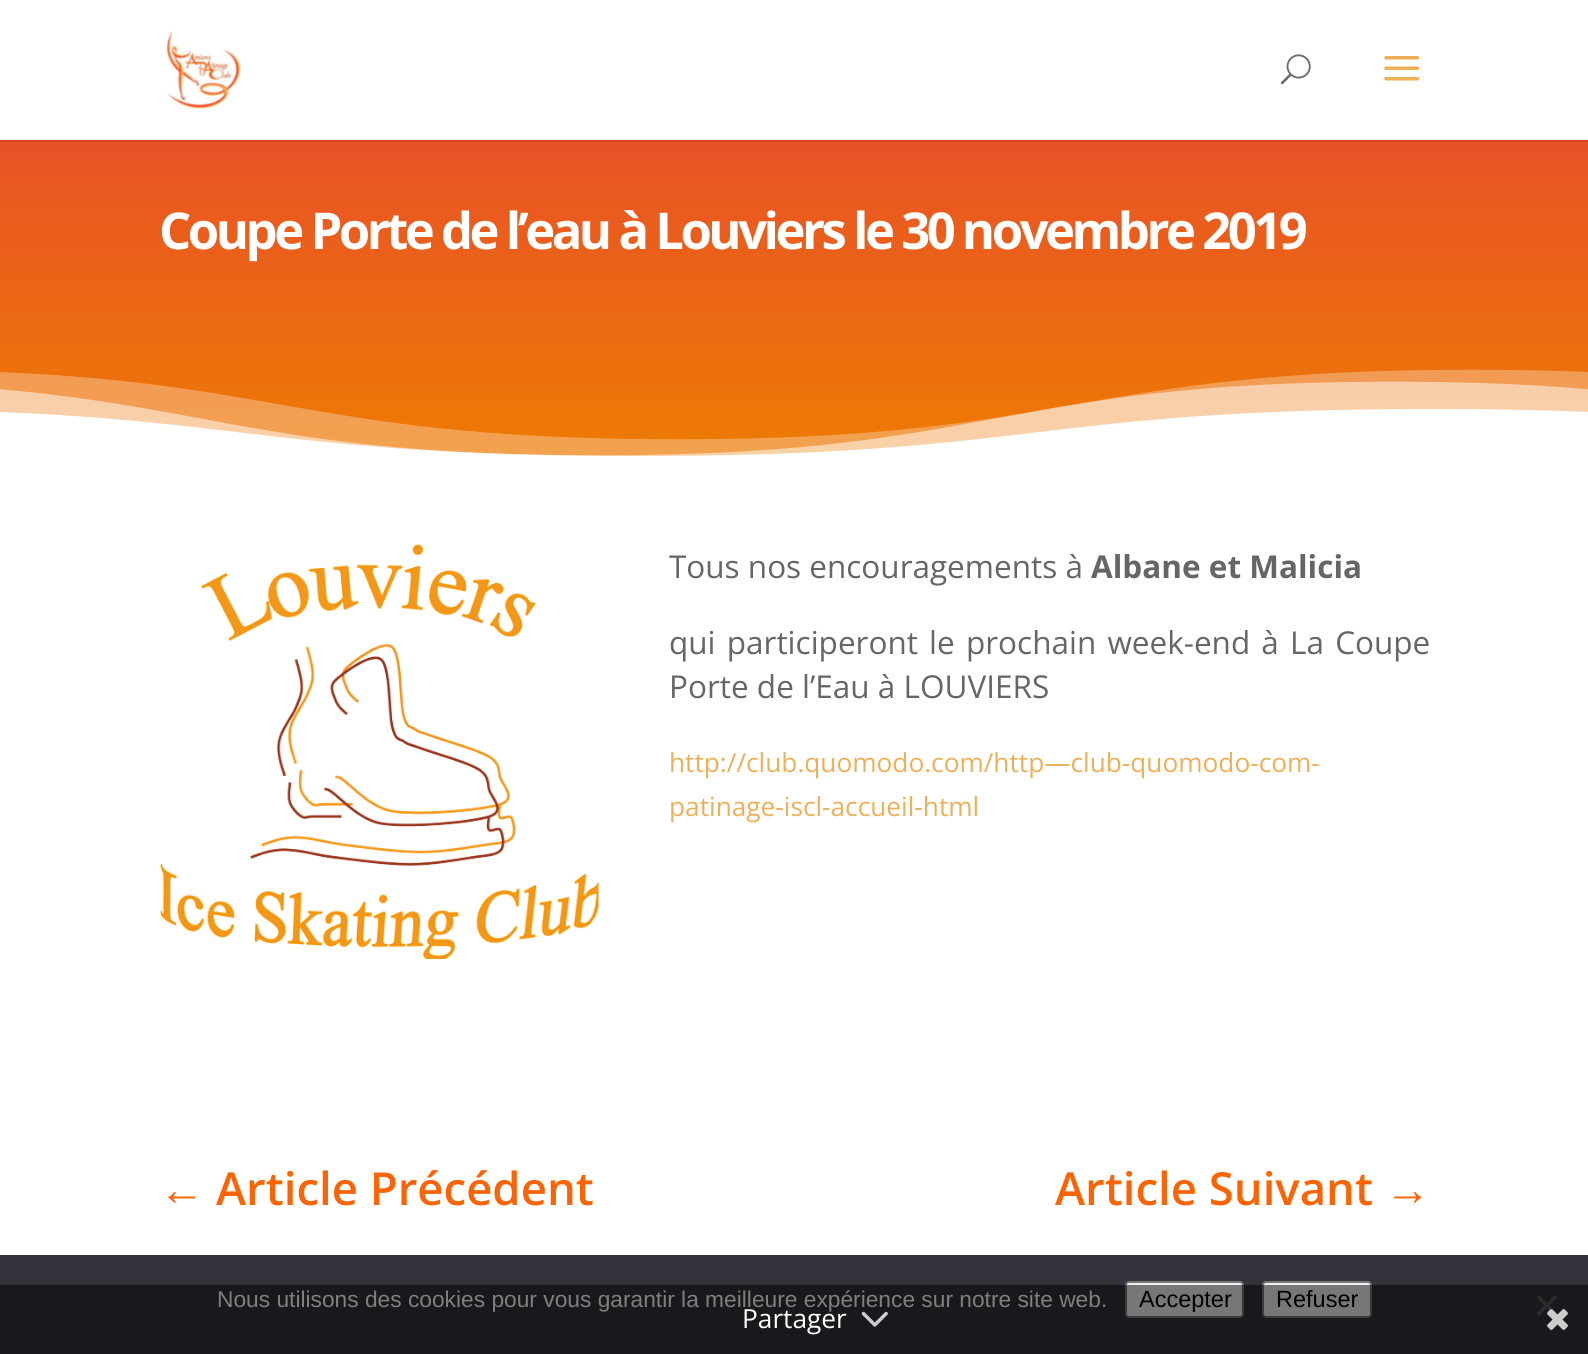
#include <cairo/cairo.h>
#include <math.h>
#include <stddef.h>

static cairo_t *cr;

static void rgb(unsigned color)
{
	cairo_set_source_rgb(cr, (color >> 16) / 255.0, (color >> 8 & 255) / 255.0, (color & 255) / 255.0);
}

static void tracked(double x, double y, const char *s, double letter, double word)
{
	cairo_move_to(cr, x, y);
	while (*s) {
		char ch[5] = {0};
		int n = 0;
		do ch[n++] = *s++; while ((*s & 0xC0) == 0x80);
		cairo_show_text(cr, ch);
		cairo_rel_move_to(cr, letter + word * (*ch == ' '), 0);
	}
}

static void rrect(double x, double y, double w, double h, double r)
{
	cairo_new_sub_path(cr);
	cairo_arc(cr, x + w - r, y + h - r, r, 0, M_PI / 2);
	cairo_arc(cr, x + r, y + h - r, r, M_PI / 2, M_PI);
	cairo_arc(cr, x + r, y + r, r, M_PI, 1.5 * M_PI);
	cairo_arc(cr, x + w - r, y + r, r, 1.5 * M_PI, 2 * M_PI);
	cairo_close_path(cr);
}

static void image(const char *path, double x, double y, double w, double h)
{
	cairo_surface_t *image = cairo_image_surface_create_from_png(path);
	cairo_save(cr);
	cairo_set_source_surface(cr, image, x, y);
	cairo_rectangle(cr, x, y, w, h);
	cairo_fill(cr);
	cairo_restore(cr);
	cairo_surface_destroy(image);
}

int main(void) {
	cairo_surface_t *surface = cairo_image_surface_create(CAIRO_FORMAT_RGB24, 1588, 1354);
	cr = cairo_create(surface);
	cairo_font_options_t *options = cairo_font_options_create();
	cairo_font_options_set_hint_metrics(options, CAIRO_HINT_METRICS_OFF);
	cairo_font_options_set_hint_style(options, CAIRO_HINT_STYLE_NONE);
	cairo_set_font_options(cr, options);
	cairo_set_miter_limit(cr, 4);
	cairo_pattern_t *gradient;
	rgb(0xffffff);
	cairo_paint(cr);
	rgb(0xd14923);
	cairo_rectangle(cr, 0, 140, 1588, 2);
	cairo_fill(cr);
	image("img/1.png", 166, 31, 76, 78);
	image("img/2.png", 1280, 54, 31, 31);
	image("img/3.png", 1384, 56, 36, 25);
	gradient = cairo_pattern_create_linear(795, 138, 795, 483);
	cairo_pattern_add_color_stop_rgba(gradient, 0, 0.91, 0.318, 0.153, 1);
	cairo_pattern_add_color_stop_rgba(gradient, 1, 0.933, 0.498, 0, 1);
	cairo_set_source(cr, gradient);
	cairo_pattern_destroy(gradient);
	cairo_rectangle(cr, 0, 142, 1588, 314);
	cairo_fill(cr);
	image("img/4.png", 0, 369, 1588, 114);
	image("img/5.png", 160, 544, 439, 415);
	rgb(0x32323a);
	cairo_rectangle(cr, 0, 1255, 1588, 99);
	cairo_fill(cr);
	rgb(0xefefef);
	rrect(1126, 1282, 117, 35, 3);
	cairo_fill_preserve(cr);
	rgb(0x767676);
	cairo_stroke(cr);
	rgb(0xefefef);
	rrect(1263, 1282, 108, 35, 3);
	cairo_fill_preserve(cr);
	rgb(0x767676);
	cairo_stroke(cr);
	rgb(0x59595d);
	cairo_new_path(cr);
	cairo_move_to(cr, 1555, 1295);
	cairo_line_to(cr, 1557.5, 1297.5);
	cairo_line_to(cr, 1539, 1316);
	cairo_line_to(cr, 1536.5, 1313.5);
	cairo_close_path(cr);
	cairo_fill(cr);
	cairo_new_path(cr);
	cairo_move_to(cr, 1536.5, 1297.5);
	cairo_line_to(cr, 1539, 1295);
	cairo_line_to(cr, 1557.5, 1313.5);
	cairo_line_to(cr, 1555, 1316);
	cairo_close_path(cr);
	cairo_fill(cr);
	cairo_select_font_face(cr, "Open Sans", CAIRO_FONT_SLANT_NORMAL, CAIRO_FONT_WEIGHT_BOLD);
	cairo_set_font_size(cr, 50.75);
	rgb(0xffffff);
	tracked(159, 249, "Coupe Porte de l’eau à Louviers le 30 novembre 2019", -3.5, 0);
	cairo_select_font_face(cr, "Open Sans", CAIRO_FONT_SLANT_NORMAL, CAIRO_FONT_WEIGHT_NORMAL);
	cairo_set_font_size(cr, 31.5);
	rgb(0x666666);
	cairo_move_to(cr, 669, 578);
	cairo_show_text(cr, "Tous nos encouragements à");
	cairo_select_font_face(cr, "Open Sans", CAIRO_FONT_SLANT_NORMAL, CAIRO_FONT_WEIGHT_BOLD);
	cairo_move_to(cr, 1091, 578);
	cairo_show_text(cr, "Albane et Malicia");
	cairo_select_font_face(cr, "Open Sans", CAIRO_FONT_SLANT_NORMAL, CAIRO_FONT_WEIGHT_NORMAL);
	tracked(669, 654, "qui participeront le prochain week-end à La Coupe", 0, 3);
	cairo_move_to(cr, 669, 698);
	cairo_show_text(cr, "Porte de l’Eau à LOUVIERS");
	cairo_set_font_size(cr, 26.25);
	rgb(0xedb059);
	cairo_move_to(cr, 669, 772);
	cairo_show_text(cr, "http://club.quomodo.com/http—club-quomodo-com-");
	cairo_move_to(cr, 669, 816);
	cairo_show_text(cr, "patinage-iscl-accueil-html");
	cairo_select_font_face(cr, "Liberation Sans", CAIRO_FONT_SLANT_NORMAL, CAIRO_FONT_WEIGHT_BOLD);
	cairo_set_font_size(cr, 45.5);
	rgb(0xfa6405);
	cairo_move_to(cr, 159, 1205);
	cairo_show_text(cr, "←");
	cairo_select_font_face(cr, "Open Sans SemiBold", CAIRO_FONT_SLANT_NORMAL, CAIRO_FONT_WEIGHT_NORMAL);
	cairo_move_to(cr, 216, 1205);
	cairo_show_text(cr, "Article Précédent");
	cairo_move_to(cr, 1055, 1205);
	cairo_show_text(cr, "Article Suivant");
	cairo_select_font_face(cr, "Liberation Sans", CAIRO_FONT_SLANT_NORMAL, CAIRO_FONT_WEIGHT_BOLD);
	cairo_move_to(cr, 1385, 1205);
	cairo_show_text(cr, "→");
	cairo_select_font_face(cr, "Liberation Sans", CAIRO_FONT_SLANT_NORMAL, CAIRO_FONT_WEIGHT_NORMAL);
	cairo_set_font_size(cr, 22.75);
	rgb(0xffffff);
	cairo_move_to(cr, 217, 1307);
	cairo_show_text(cr, "Nous utilisons des cookies pour vous garantir la meilleure expérience sur notre site web.");
	cairo_set_font_size(cr, 23.5);
	rgb(0x000000);
	cairo_move_to(cr, 1139, 1307);
	cairo_show_text(cr, "Accepter");
	cairo_move_to(cr, 1276, 1307);
	cairo_show_text(cr, "Refuser");
	cairo_set_source_rgba(cr, 0, 0, 0, 0.5);
	cairo_rectangle(cr, 0, 1285, 1588, 69);
	cairo_fill(cr);
	cairo_select_font_face(cr, "Open Sans", CAIRO_FONT_SLANT_NORMAL, CAIRO_FONT_WEIGHT_NORMAL);
	cairo_set_font_size(cr, 26.25);
	rgb(0xffffff);
	cairo_move_to(cr, 742, 1328);
	cairo_show_text(cr, "Partager");
	image("img/6.png", 861, 1311, 27, 16);
	image("img/7.png", 1547, 1309, 21, 21);
	cairo_surface_write_to_png(surface, "page.png");
	cairo_font_options_destroy(options);
	cairo_destroy(cr);
	cairo_surface_destroy(surface);
	return 0;
}
